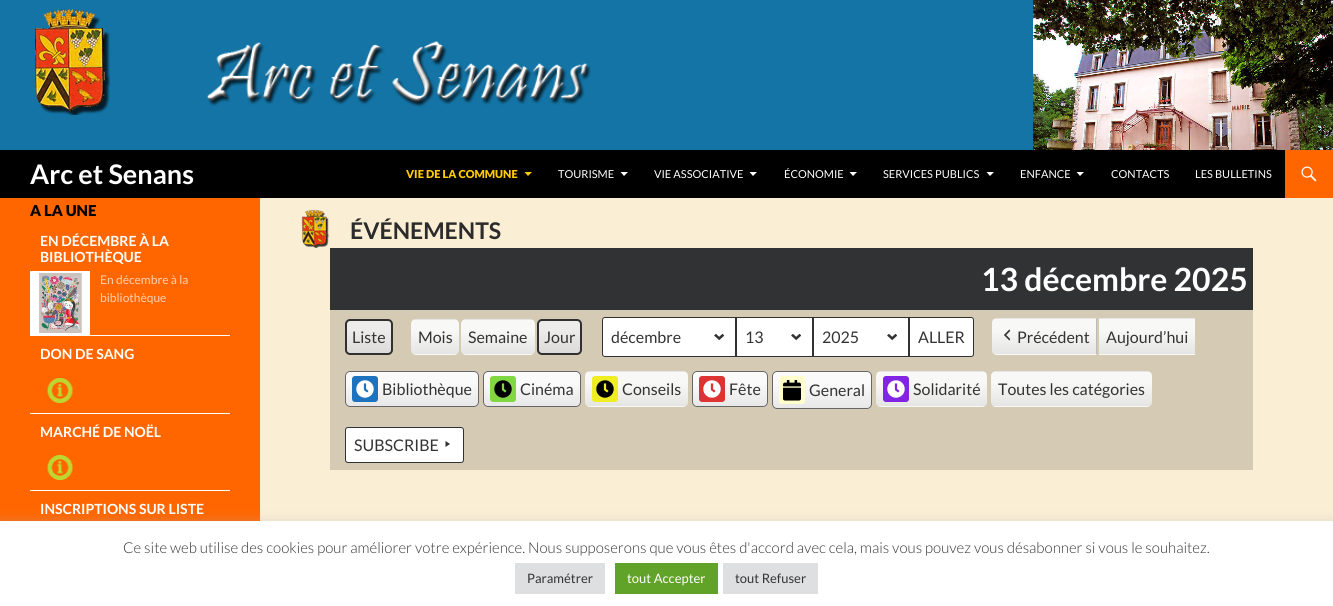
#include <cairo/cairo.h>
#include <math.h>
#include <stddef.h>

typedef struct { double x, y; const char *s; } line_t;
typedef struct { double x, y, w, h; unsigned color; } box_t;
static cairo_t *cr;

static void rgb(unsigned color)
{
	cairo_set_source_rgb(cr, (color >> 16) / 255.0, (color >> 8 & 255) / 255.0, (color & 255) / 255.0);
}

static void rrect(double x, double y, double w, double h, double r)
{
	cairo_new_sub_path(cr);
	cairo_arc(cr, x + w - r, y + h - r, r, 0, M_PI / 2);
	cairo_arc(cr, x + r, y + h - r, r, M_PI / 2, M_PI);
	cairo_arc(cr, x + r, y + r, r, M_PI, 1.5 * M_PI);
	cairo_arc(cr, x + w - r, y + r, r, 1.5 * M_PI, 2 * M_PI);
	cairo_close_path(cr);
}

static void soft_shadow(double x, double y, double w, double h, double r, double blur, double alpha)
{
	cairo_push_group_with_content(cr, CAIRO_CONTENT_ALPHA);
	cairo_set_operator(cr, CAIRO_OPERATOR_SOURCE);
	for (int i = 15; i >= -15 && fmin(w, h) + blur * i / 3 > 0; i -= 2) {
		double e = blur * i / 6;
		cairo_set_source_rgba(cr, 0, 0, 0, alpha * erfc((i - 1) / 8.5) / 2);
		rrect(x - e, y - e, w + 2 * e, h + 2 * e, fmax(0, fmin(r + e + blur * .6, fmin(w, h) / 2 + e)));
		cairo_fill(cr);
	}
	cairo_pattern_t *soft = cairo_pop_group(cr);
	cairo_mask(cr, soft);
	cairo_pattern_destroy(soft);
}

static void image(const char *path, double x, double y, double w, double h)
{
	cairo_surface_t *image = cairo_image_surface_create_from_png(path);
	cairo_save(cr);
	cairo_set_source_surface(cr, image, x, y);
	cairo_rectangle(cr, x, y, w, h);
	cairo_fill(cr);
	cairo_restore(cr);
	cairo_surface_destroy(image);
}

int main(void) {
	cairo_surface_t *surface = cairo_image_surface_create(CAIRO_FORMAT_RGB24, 1333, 606);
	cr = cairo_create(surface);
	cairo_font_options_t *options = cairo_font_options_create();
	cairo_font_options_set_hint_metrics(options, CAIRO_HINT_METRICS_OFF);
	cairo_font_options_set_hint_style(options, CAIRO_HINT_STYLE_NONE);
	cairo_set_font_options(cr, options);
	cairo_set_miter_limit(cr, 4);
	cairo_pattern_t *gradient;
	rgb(0xfaefd5);
	cairo_paint(cr);
	rgb(0x1374a5);
	cairo_rectangle(cr, 0, 0, 1033, 150);
	cairo_fill(cr);
	image("img/1.png", 35, 9, 75, 106);
	image("img/2.png", 207, 41, 384, 66);
	image("img/3.png", 1033, 0, 300, 150);
	rgb(0x000000);
	cairo_rectangle(cr, 0, 150, 1285, 48);
	cairo_fill(cr);
	rgb(0xffcc00);
	cairo_new_path(cr);
	cairo_move_to(cr, 524.5, 172);
	cairo_line_to(cr, 528, 176);
	cairo_line_to(cr, 532, 172);
	cairo_close_path(cr);
	cairo_fill(cr);
	rgb(0xffffff);
	cairo_new_path(cr);
	cairo_move_to(cr, 620.5, 172);
	cairo_line_to(cr, 624, 176);
	cairo_line_to(cr, 628, 172);
	cairo_close_path(cr);
	cairo_fill(cr);
	cairo_new_path(cr);
	cairo_move_to(cr, 749.5, 172);
	cairo_line_to(cr, 753, 176);
	cairo_line_to(cr, 757, 172);
	cairo_close_path(cr);
	cairo_fill(cr);
	cairo_new_path(cr);
	cairo_move_to(cr, 849.5, 172);
	cairo_line_to(cr, 853, 176);
	cairo_line_to(cr, 857, 172);
	cairo_close_path(cr);
	cairo_fill(cr);
	cairo_new_path(cr);
	cairo_move_to(cr, 986.5, 172);
	cairo_line_to(cr, 990, 176);
	cairo_line_to(cr, 994, 172);
	cairo_close_path(cr);
	cairo_fill(cr);
	cairo_new_path(cr);
	cairo_move_to(cr, 1076.5, 172);
	cairo_line_to(cr, 1080, 176);
	cairo_line_to(cr, 1084, 172);
	cairo_close_path(cr);
	cairo_fill(cr);
	rgb(0xff6600);
	cairo_rectangle(cr, 1285, 150, 48, 48);
	cairo_fill(cr);
	image("img/4.png", 1301, 166, 16, 16);
	cairo_rectangle(cr, 0, 198, 260, 323);
	cairo_fill(cr);
	rgb(0xffffff);
	cairo_rectangle(cr, 30, 335, 200, 1);
	cairo_fill(cr);
	image("img/5.png", 30, 271, 60, 64);
	cairo_rectangle(cr, 30, 413, 200, 1);
	cairo_fill(cr);
	image("img/6.png", 47, 378, 26, 25);
	cairo_rectangle(cr, 30, 490, 200, 1);
	cairo_fill(cr);
	image("img/6.png", 47, 455, 26, 25);
	image("img/7.png", 301, 209, 28, 39);
	rgb(0x313233);
	cairo_rectangle(cr, 330, 248, 923, 62);
	cairo_fill(cr);
	rgb(0xd5cbb5);
	cairo_rectangle(cr, 330, 310, 923, 160);
	cairo_fill(cr);
	cairo_save(cr);
	rrect(345, 319, 48, 36, 5);
	cairo_clip(cr);
	gradient = cairo_pattern_create_linear(369, 354, 369, 320);
	cairo_pattern_add_color_stop_rgba(gradient, 0, 0.859, 0.855, 0.851, 1);
	cairo_pattern_add_color_stop_rgba(gradient, 0.7, 0.929, 0.925, 0.922, 1);
	cairo_set_source(cr, gradient);
	cairo_pattern_destroy(gradient);
	cairo_rectangle(cr, 345, 320, 48, 34);
	cairo_fill(cr);
	cairo_restore(cr);
	rrect(346, 320, 46, 34, 4);
	rgb(0x303030);
	cairo_stroke(cr);
	cairo_save(cr);
	rrect(411, 319, 48, 36, 5);
	cairo_clip(cr);
	gradient = cairo_pattern_create_linear(435, 320, 435, 286);
	cairo_pattern_add_color_stop_rgba(gradient, 0, 0.898, 0.898, 0.894, 1);
	cairo_pattern_add_color_stop_rgba(gradient, 0.7, 0.973, 0.973, 0.969, 1);
	cairo_set_source(cr, gradient);
	cairo_pattern_destroy(gradient);
	cairo_rectangle(cr, 411, 319, 48, 1);
	cairo_fill(cr);
	gradient = cairo_pattern_create_linear(435, 354, 435, 320);
	cairo_pattern_add_color_stop_rgba(gradient, 0, 0.898, 0.898, 0.894, 1);
	cairo_pattern_add_color_stop_rgba(gradient, 0.7, 0.973, 0.973, 0.969, 1);
	cairo_set_source(cr, gradient);
	cairo_pattern_destroy(gradient);
	cairo_rectangle(cr, 411, 320, 48, 34);
	cairo_fill(cr);
	gradient = cairo_pattern_create_linear(435, 388, 435, 354);
	cairo_pattern_add_color_stop_rgba(gradient, 0, 0.898, 0.898, 0.894, 1);
	cairo_pattern_add_color_stop_rgba(gradient, 0.7, 0.973, 0.973, 0.969, 1);
	cairo_set_source(cr, gradient);
	cairo_pattern_destroy(gradient);
	cairo_rectangle(cr, 411, 354, 48, 1);
	cairo_fill(cr);
	cairo_restore(cr);
	cairo_save(cr);
	rrect(461, 319, 74, 36, 5);
	cairo_clip(cr);
	gradient = cairo_pattern_create_linear(498, 320, 498, 286);
	cairo_pattern_add_color_stop_rgba(gradient, 0, 0.898, 0.898, 0.894, 1);
	cairo_pattern_add_color_stop_rgba(gradient, 0.7, 0.973, 0.973, 0.969, 1);
	cairo_set_source(cr, gradient);
	cairo_pattern_destroy(gradient);
	cairo_rectangle(cr, 461, 319, 74, 1);
	cairo_fill(cr);
	gradient = cairo_pattern_create_linear(498, 354, 498, 320);
	cairo_pattern_add_color_stop_rgba(gradient, 0, 0.898, 0.898, 0.894, 1);
	cairo_pattern_add_color_stop_rgba(gradient, 0.7, 0.973, 0.973, 0.969, 1);
	cairo_set_source(cr, gradient);
	cairo_pattern_destroy(gradient);
	cairo_rectangle(cr, 461, 320, 74, 34);
	cairo_fill(cr);
	gradient = cairo_pattern_create_linear(498, 388, 498, 354);
	cairo_pattern_add_color_stop_rgba(gradient, 0, 0.898, 0.898, 0.894, 1);
	cairo_pattern_add_color_stop_rgba(gradient, 0.7, 0.973, 0.973, 0.969, 1);
	cairo_set_source(cr, gradient);
	cairo_pattern_destroy(gradient);
	cairo_rectangle(cr, 461, 354, 74, 1);
	cairo_fill(cr);
	cairo_restore(cr);
	cairo_save(cr);
	rrect(537, 319, 45, 36, 5);
	cairo_clip(cr);
	gradient = cairo_pattern_create_linear(560, 354, 560, 320);
	cairo_pattern_add_color_stop_rgba(gradient, 0, 0.859, 0.855, 0.851, 1);
	cairo_pattern_add_color_stop_rgba(gradient, 0.7, 0.929, 0.925, 0.922, 1);
	cairo_set_source(cr, gradient);
	cairo_pattern_destroy(gradient);
	cairo_rectangle(cr, 537, 320, 45, 34);
	cairo_fill(cr);
	cairo_restore(cr);
	rrect(538, 320, 43, 34, 4);
	cairo_stroke(cr);
	rgb(0xffffff);
	cairo_new_path(cr);
	cairo_move_to(cr, 605, 317);
	cairo_line_to(cr, 736, 317);
	cairo_line_to(cr, 736, 357);
	cairo_line_to(cr, 605, 357);
	cairo_curve_to(cr, 603.5, 357, 602, 355.5, 602, 354);
	cairo_line_to(cr, 602, 320);
	cairo_curve_to(cr, 602, 318.5, 603.5, 317, 605, 317);
	cairo_close_path(cr);
	cairo_fill(cr);
	image("img/8.png", 714, 333, 10, 8);
	cairo_new_path(cr);
	cairo_move_to(cr, 605, 317.5);
	cairo_line_to(cr, 735.5, 317.5);
	cairo_line_to(cr, 735.5, 356.5);
	cairo_line_to(cr, 605, 356.5);
	cairo_curve_to(cr, 603.5, 356.5, 602.5, 355.5, 602.5, 354);
	cairo_line_to(cr, 602.5, 320);
	cairo_curve_to(cr, 602.5, 318.5, 603.5, 317.5, 605, 317.5);
	cairo_close_path(cr);
	rgb(0x313233);
	cairo_set_line_width(cr, 1);
	cairo_stroke(cr);
	rgb(0xffffff);
	cairo_rectangle(cr, 737, 318, 75, 38);
	cairo_fill(cr);
	image("img/8.png", 791, 333, 10, 8);
	cairo_rectangle(cr, 736.5, 317.5, 76, 39);
	rgb(0x313233);
	cairo_stroke(cr);
	rgb(0xffffff);
	cairo_rectangle(cr, 814, 318, 94, 38);
	cairo_fill(cr);
	image("img/8.png", 887, 333, 10, 8);
	cairo_rectangle(cr, 813.5, 317.5, 95, 39);
	rgb(0x313233);
	cairo_stroke(cr);
	rgb(0xffffff);
	cairo_new_path(cr);
	cairo_move_to(cr, 909.5, 317.5);
	cairo_line_to(cr, 971, 317.5);
	cairo_curve_to(cr, 972.5, 317.5, 973.5, 318.5, 973.5, 320);
	cairo_line_to(cr, 973.5, 354);
	cairo_curve_to(cr, 973.5, 355.5, 972.5, 356.5, 971, 356.5);
	cairo_line_to(cr, 909.5, 356.5);
	cairo_close_path(cr);
	cairo_fill_preserve(cr);
	rgb(0x313233);
	cairo_stroke(cr);
	cairo_save(cr);
	cairo_new_path(cr);
	cairo_move_to(cr, 997, 318);
	cairo_line_to(cr, 1097, 318);
	cairo_line_to(cr, 1097, 355);
	cairo_line_to(cr, 997, 355);
	cairo_curve_to(cr, 994, 355, 992, 353, 992, 350);
	cairo_line_to(cr, 992, 323);
	cairo_curve_to(cr, 992, 320, 994, 318, 997, 318);
	cairo_close_path(cr);
	cairo_clip(cr);
	gradient = cairo_pattern_create_linear(1045, 319, 1045, 284);
	cairo_pattern_add_color_stop_rgba(gradient, 0, 0.898, 0.898, 0.894, 1);
	cairo_pattern_add_color_stop_rgba(gradient, 0.7, 0.973, 0.973, 0.969, 1);
	cairo_set_source(cr, gradient);
	cairo_pattern_destroy(gradient);
	cairo_rectangle(cr, 992, 318, 105, 1);
	cairo_fill(cr);
	gradient = cairo_pattern_create_linear(1045, 354, 1045, 319);
	cairo_pattern_add_color_stop_rgba(gradient, 0, 0.898, 0.898, 0.894, 1);
	cairo_pattern_add_color_stop_rgba(gradient, 0.7, 0.973, 0.973, 0.969, 1);
	cairo_set_source(cr, gradient);
	cairo_pattern_destroy(gradient);
	cairo_rectangle(cr, 992, 319, 104, 35);
	cairo_fill(cr);
	gradient = cairo_pattern_create_linear(1045, 389, 1045, 354);
	cairo_pattern_add_color_stop_rgba(gradient, 0, 0.898, 0.898, 0.894, 1);
	cairo_pattern_add_color_stop_rgba(gradient, 0.7, 0.973, 0.973, 0.969, 1);
	cairo_set_source(cr, gradient);
	cairo_pattern_destroy(gradient);
	cairo_rectangle(cr, 992, 354, 105, 1);
	cairo_fill(cr);
	cairo_restore(cr);
	rgb(0xbbbbbb);
	cairo_new_path(cr);
	cairo_move_to(cr, 1097, 318);
	cairo_line_to(cr, 1096, 319);
	cairo_line_to(cr, 1096, 354);
	cairo_line_to(cr, 1097, 355);
	cairo_close_path(cr);
	cairo_fill(cr);
	image("img/9.png", 1004, 329, 7, 12);
	gradient = cairo_pattern_create_linear(1147, 319, 1147, 284);
	cairo_pattern_add_color_stop_rgba(gradient, 0, 0.898, 0.898, 0.894, 1);
	cairo_pattern_add_color_stop_rgba(gradient, 0.7, 0.973, 0.973, 0.969, 1);
	cairo_set_source(cr, gradient);
	cairo_pattern_destroy(gradient);
	cairo_rectangle(cr, 1099, 318, 96, 1);
	cairo_fill(cr);
	gradient = cairo_pattern_create_linear(1147, 354, 1147, 319);
	cairo_pattern_add_color_stop_rgba(gradient, 0, 0.898, 0.898, 0.894, 1);
	cairo_pattern_add_color_stop_rgba(gradient, 0.7, 0.973, 0.973, 0.969, 1);
	cairo_set_source(cr, gradient);
	cairo_pattern_destroy(gradient);
	cairo_rectangle(cr, 1099, 319, 96, 35);
	cairo_fill(cr);
	gradient = cairo_pattern_create_linear(1147, 389, 1147, 354);
	cairo_pattern_add_color_stop_rgba(gradient, 0, 0.898, 0.898, 0.894, 1);
	cairo_pattern_add_color_stop_rgba(gradient, 0.7, 0.973, 0.973, 0.969, 1);
	cairo_set_source(cr, gradient);
	cairo_pattern_destroy(gradient);
	cairo_rectangle(cr, 1099, 354, 96, 1);
	cairo_fill(cr);
	rgb(0xffffff);
	rrect(345, 371, 134, 36, 5);
	cairo_fill(cr);
	cairo_save(cr);
	rrect(345, 371, 134, 36, 5);
	cairo_clip(cr);
	gradient = cairo_pattern_create_linear(412, 406, 412, 372);
	cairo_pattern_add_color_stop_rgba(gradient, 0, 0.902, 0.902, 0.902, 0.95);
	cairo_pattern_add_color_stop_rgba(gradient, 0.7, 0.98, 0.98, 0.98, 0.95);
	cairo_set_source(cr, gradient);
	cairo_pattern_destroy(gradient);
	cairo_rectangle(cr, 345, 372, 134, 34);
	cairo_fill(cr);
	cairo_restore(cr);
	rrect(345.5, 371.5, 133, 35, 4.5);
	rgb(0x666666);
	cairo_stroke(cr);
	rgb(0x1e73be);
	rrect(352, 376, 26, 26, 3);
	cairo_fill(cr);
	image("img/10.png", 356, 380, 18, 18);
	rgb(0xffffff);
	rrect(483, 371, 98, 36, 5);
	cairo_fill(cr);
	cairo_save(cr);
	rrect(483, 371, 98, 36, 5);
	cairo_clip(cr);
	gradient = cairo_pattern_create_linear(532, 406, 532, 372);
	cairo_pattern_add_color_stop_rgba(gradient, 0, 0.902, 0.902, 0.902, 0.95);
	cairo_pattern_add_color_stop_rgba(gradient, 0.7, 0.98, 0.98, 0.98, 0.95);
	cairo_set_source(cr, gradient);
	cairo_pattern_destroy(gradient);
	cairo_rectangle(cr, 483, 372, 98, 34);
	cairo_fill(cr);
	cairo_restore(cr);
	rrect(483.5, 371.5, 97, 35, 4.5);
	rgb(0x666666);
	cairo_stroke(cr);
	rgb(0x81d742);
	rrect(490, 376, 26, 26, 3);
	cairo_fill(cr);
	image("img/11.png", 494, 380, 18, 18);
	cairo_save(cr);
	rrect(585, 371, 103, 36, 5);
	cairo_clip(cr);
	gradient = cairo_pattern_create_linear(637, 372, 637, 338);
	cairo_pattern_add_color_stop_rgba(gradient, 0, 0.898, 0.898, 0.894, 1);
	cairo_pattern_add_color_stop_rgba(gradient, 0.7, 0.973, 0.973, 0.969, 1);
	cairo_set_source(cr, gradient);
	cairo_pattern_destroy(gradient);
	cairo_rectangle(cr, 585, 371, 103, 1);
	cairo_fill(cr);
	gradient = cairo_pattern_create_linear(637, 406, 637, 372);
	cairo_pattern_add_color_stop_rgba(gradient, 0, 0.898, 0.898, 0.894, 1);
	cairo_pattern_add_color_stop_rgba(gradient, 0.7, 0.973, 0.973, 0.969, 1);
	cairo_set_source(cr, gradient);
	cairo_pattern_destroy(gradient);
	cairo_rectangle(cr, 585, 372, 103, 34);
	cairo_fill(cr);
	gradient = cairo_pattern_create_linear(637, 440, 637, 406);
	cairo_pattern_add_color_stop_rgba(gradient, 0, 0.898, 0.898, 0.894, 1);
	cairo_pattern_add_color_stop_rgba(gradient, 0.7, 0.973, 0.973, 0.969, 1);
	cairo_set_source(cr, gradient);
	cairo_pattern_destroy(gradient);
	cairo_rectangle(cr, 585, 406, 103, 1);
	cairo_fill(cr);
	cairo_restore(cr);
	rgb(0xeeee22);
	rrect(592, 376, 26, 26, 3);
	cairo_fill(cr);
	image("img/12.png", 596, 380, 18, 18);
	rgb(0xffffff);
	rrect(692, 371, 76, 36, 5);
	cairo_fill(cr);
	cairo_save(cr);
	rrect(692, 371, 76, 36, 5);
	cairo_clip(cr);
	gradient = cairo_pattern_create_linear(730, 406, 730, 372);
	cairo_pattern_add_color_stop_rgba(gradient, 0, 0.902, 0.902, 0.902, 0.95);
	cairo_pattern_add_color_stop_rgba(gradient, 0.7, 0.98, 0.98, 0.98, 0.95);
	cairo_set_source(cr, gradient);
	cairo_pattern_destroy(gradient);
	cairo_rectangle(cr, 692, 372, 76, 34);
	cairo_fill(cr);
	cairo_restore(cr);
	rrect(692.5, 371.5, 75, 35, 4.5);
	rgb(0x666666);
	cairo_stroke(cr);
	rgb(0xdd3333);
	rrect(699, 376, 26, 26, 3);
	cairo_fill(cr);
	image("img/13.png", 703, 380, 18, 18);
	rgb(0xffffff);
	rrect(772, 371, 100, 38, 5);
	cairo_fill(cr);
	cairo_save(cr);
	rrect(772, 371, 100, 38, 5);
	cairo_clip(cr);
	gradient = cairo_pattern_create_linear(822, 408, 822, 372);
	cairo_pattern_add_color_stop_rgba(gradient, 0, 0.902, 0.902, 0.902, 0.95);
	cairo_pattern_add_color_stop_rgba(gradient, 0.7, 0.98, 0.98, 0.98, 0.95);
	cairo_set_source(cr, gradient);
	cairo_pattern_destroy(gradient);
	cairo_rectangle(cr, 772, 372, 100, 36);
	cairo_fill(cr);
	cairo_restore(cr);
	rrect(772.5, 371.5, 99, 37, 4.5);
	rgb(0x666666);
	cairo_stroke(cr);
	rgb(0xffffcc);
	rrect(779, 376, 26, 28, 3);
	cairo_fill(cr);
	image("img/14.png", 783, 380, 18, 21);
	cairo_save(cr);
	rrect(876, 371, 111, 36, 5);
	cairo_clip(cr);
	gradient = cairo_pattern_create_linear(932, 372, 932, 338);
	cairo_pattern_add_color_stop_rgba(gradient, 0, 0.898, 0.898, 0.894, 1);
	cairo_pattern_add_color_stop_rgba(gradient, 0.7, 0.973, 0.973, 0.969, 1);
	cairo_set_source(cr, gradient);
	cairo_pattern_destroy(gradient);
	cairo_rectangle(cr, 876, 371, 111, 1);
	cairo_fill(cr);
	gradient = cairo_pattern_create_linear(932, 406, 932, 372);
	cairo_pattern_add_color_stop_rgba(gradient, 0, 0.898, 0.898, 0.894, 1);
	cairo_pattern_add_color_stop_rgba(gradient, 0.7, 0.973, 0.973, 0.969, 1);
	cairo_set_source(cr, gradient);
	cairo_pattern_destroy(gradient);
	cairo_rectangle(cr, 876, 372, 111, 34);
	cairo_fill(cr);
	gradient = cairo_pattern_create_linear(932, 440, 932, 406);
	cairo_pattern_add_color_stop_rgba(gradient, 0, 0.898, 0.898, 0.894, 1);
	cairo_pattern_add_color_stop_rgba(gradient, 0.7, 0.973, 0.973, 0.969, 1);
	cairo_set_source(cr, gradient);
	cairo_pattern_destroy(gradient);
	cairo_rectangle(cr, 876, 406, 111, 1);
	cairo_fill(cr);
	cairo_restore(cr);
	rgb(0x8224e3);
	rrect(883, 376, 26, 26, 3);
	cairo_fill(cr);
	image("img/15.png", 887, 380, 18, 18);
	cairo_save(cr);
	rrect(991, 371, 161, 36, 5);
	cairo_clip(cr);
	gradient = cairo_pattern_create_linear(1072, 372, 1072, 338);
	cairo_pattern_add_color_stop_rgba(gradient, 0, 0.898, 0.898, 0.894, 1);
	cairo_pattern_add_color_stop_rgba(gradient, 0.7, 0.973, 0.973, 0.969, 1);
	cairo_set_source(cr, gradient);
	cairo_pattern_destroy(gradient);
	cairo_rectangle(cr, 991, 371, 161, 1);
	cairo_fill(cr);
	gradient = cairo_pattern_create_linear(1072, 406, 1072, 372);
	cairo_pattern_add_color_stop_rgba(gradient, 0, 0.898, 0.898, 0.894, 1);
	cairo_pattern_add_color_stop_rgba(gradient, 0.7, 0.973, 0.973, 0.969, 1);
	cairo_set_source(cr, gradient);
	cairo_pattern_destroy(gradient);
	cairo_rectangle(cr, 991, 372, 161, 34);
	cairo_fill(cr);
	gradient = cairo_pattern_create_linear(1072, 440, 1072, 406);
	cairo_pattern_add_color_stop_rgba(gradient, 0, 0.898, 0.898, 0.894, 1);
	cairo_pattern_add_color_stop_rgba(gradient, 0.7, 0.973, 0.973, 0.969, 1);
	cairo_set_source(cr, gradient);
	cairo_pattern_destroy(gradient);
	cairo_rectangle(cr, 991, 406, 161, 1);
	cairo_fill(cr);
	cairo_restore(cr);
	rgb(0xffffff);
	rrect(345.5, 427.5, 118, 35, 2.5);
	cairo_fill_preserve(cr);
	rgb(0x313233);
	cairo_stroke(cr);
	cairo_new_path(cr);
	cairo_move_to(cr, 445.5, 441);
	cairo_line_to(cr, 450, 444);
	cairo_line_to(cr, 445.5, 447);
	cairo_close_path(cr);
	cairo_fill(cr);
	rgb(0xacabab);
	soft_shadow(0, 520, 1333, 85, 0, 5, 0.3);
	{
		static const box_t items[] = {
			{0, 521, 1333, 85, 0xffffff},
			{515, 563, 90, 31, 0xdedfe0},
			{615, 563, 103, 31, 0x61a229},
			{723, 563, 95, 31, 0xdedfe0},
		};
		for (size_t i = 0; i < sizeof items / sizeof *items; i++) {
			rgb(items[i].color);
			cairo_rectangle(cr, items[i].x, items[i].y, items[i].w, items[i].h);
			cairo_fill(cr);
		}
	}
	cairo_select_font_face(cr, "Lato", CAIRO_FONT_SLANT_NORMAL, CAIRO_FONT_WEIGHT_BOLD);
	cairo_set_font_size(cr, 27);
	rgb(0xffffff);
	cairo_move_to(cr, 30, 184);
	cairo_show_text(cr, "Arc et Senans");
	cairo_select_font_face(cr, "Lato Black", CAIRO_FONT_SLANT_NORMAL, CAIRO_FONT_WEIGHT_NORMAL);
	cairo_set_font_size(cr, 11);
	rgb(0xffcc00);
	cairo_move_to(cr, 406, 178);
	cairo_show_text(cr, "VIE DE LA COMMUNE");
	cairo_select_font_face(cr, "Lato", CAIRO_FONT_SLANT_NORMAL, CAIRO_FONT_WEIGHT_NORMAL);
	rgb(0xffffff);
	{
		static const line_t items[] = {
			{558, 178, "TOURISME"},
			{654, 178, "VIE ASSOCIATIVE"},
			{784, 178, "ÉCONOMIE"},
			{883, 178, "SERVICES PUBLICS"},
			{1020, 178, "ENFANCE"},
			{1111, 178, "CONTACTS"},
			{1195, 178, "LES BULLETINS"},
		};
		for (size_t i = 0; i < sizeof items / sizeof *items; i++) {
			cairo_move_to(cr, items[i].x, items[i].y);
			cairo_show_text(cr, items[i].s);
		}
	}
	cairo_select_font_face(cr, "Lato Black", CAIRO_FONT_SLANT_NORMAL, CAIRO_FONT_WEIGHT_NORMAL);
	cairo_set_font_size(cr, 15);
	rgb(0x000000);
	cairo_move_to(cr, 30, 216);
	cairo_show_text(cr, "A LA UNE");
	cairo_select_font_face(cr, "Lato", CAIRO_FONT_SLANT_NORMAL, CAIRO_FONT_WEIGHT_BOLD);
	cairo_set_font_size(cr, 14);
	rgb(0xffffff);
	cairo_move_to(cr, 40, 246);
	cairo_show_text(cr, "EN DÉCEMBRE À LA");
	cairo_move_to(cr, 40, 262);
	cairo_show_text(cr, "BIBLIOTHÈQUE");
	cairo_select_font_face(cr, "Lato", CAIRO_FONT_SLANT_NORMAL, CAIRO_FONT_WEIGHT_NORMAL);
	cairo_set_font_size(cr, 12);
	rgb(0xffd1b3);
	cairo_move_to(cr, 100, 284);
	cairo_show_text(cr, "En décembre à la");
	cairo_move_to(cr, 100, 302);
	cairo_show_text(cr, "bibliothèque");
	cairo_select_font_face(cr, "Lato", CAIRO_FONT_SLANT_NORMAL, CAIRO_FONT_WEIGHT_BOLD);
	cairo_set_font_size(cr, 14);
	rgb(0xffffff);
	{
		static const line_t items[] = {
			{40, 359, "DON DE SANG"},
			{40, 437, "MARCHÉ DE NOËL"},
			{40, 514, "INSCRIPTIONS SUR LISTE"},
		};
		for (size_t i = 0; i < sizeof items / sizeof *items; i++) {
			cairo_move_to(cr, items[i].x, items[i].y);
			cairo_show_text(cr, items[i].s);
		}
	}
	cairo_set_font_size(cr, 23);
	rgb(0x2b2b2b);
	cairo_move_to(cr, 350, 239);
	cairo_show_text(cr, "ÉVÉNEMENTS");
	cairo_set_font_size(cr, 32);
	rgb(0xffffff);
	cairo_move_to(cr, 981, 291);
	cairo_show_text(cr, "13 décembre 2025");
	cairo_select_font_face(cr, "Lato", CAIRO_FONT_SLANT_NORMAL, CAIRO_FONT_WEIGHT_NORMAL);
	cairo_set_font_size(cr, 16);
	rgb(0x333333);
	{
		static const line_t items[] = {
			{352, 343, "Liste"},
			{418, 343, "Mois"},
			{468, 343, "Semaine"},
			{544, 343, "Jour"},
			{611, 343, "décembre"},
			{745, 343, "13"},
			{822, 343, "2025"},
			{918, 343, "ALLER"},
			{1017, 343, "Précédent"},
			{1106, 343, "Aujourd’hui"},
			{382, 395, "Bibliothèque"},
			{520, 395, "Cinéma"},
			{622, 395, "Conseils"},
			{729, 395, "Fête"},
			{809, 396, "General"},
			{913, 395, "Solidarité"},
			{998, 395, "Toutes les catégories"},
			{354, 451, "SUBSCRIBE"},
		};
		for (size_t i = 0; i < sizeof items / sizeof *items; i++) {
			cairo_move_to(cr, items[i].x, items[i].y);
			cairo_show_text(cr, items[i].s);
		}
	}
	cairo_select_font_face(cr, "Lato Light", CAIRO_FONT_SLANT_NORMAL, CAIRO_FONT_WEIGHT_NORMAL);
	cairo_set_font_size(cr, 15);
	cairo_move_to(cr, 123, 553);
	cairo_show_text(cr, "Ce site web utilise des cookies pour améliorer votre expérience. Nous supposerons que vous êtes d'accord avec cela, mais vous pouvez vous désabonner si vous le souhaitez.");
	cairo_select_font_face(cr, "Lato", CAIRO_FONT_SLANT_NORMAL, CAIRO_FONT_WEIGHT_NORMAL);
	cairo_set_font_size(cr, 13);
	cairo_move_to(cr, 527, 583);
	cairo_show_text(cr, "Paramétrer");
	rgb(0xffffff);
	cairo_move_to(cr, 627, 583);
	cairo_show_text(cr, "tout Accepter");
	rgb(0x333333);
	cairo_move_to(cr, 735, 583);
	cairo_show_text(cr, "tout Refuser");
	cairo_surface_write_to_png(surface, "page.png");
	cairo_font_options_destroy(options);
	cairo_destroy(cr);
	cairo_surface_destroy(surface);
	return 0;
}
